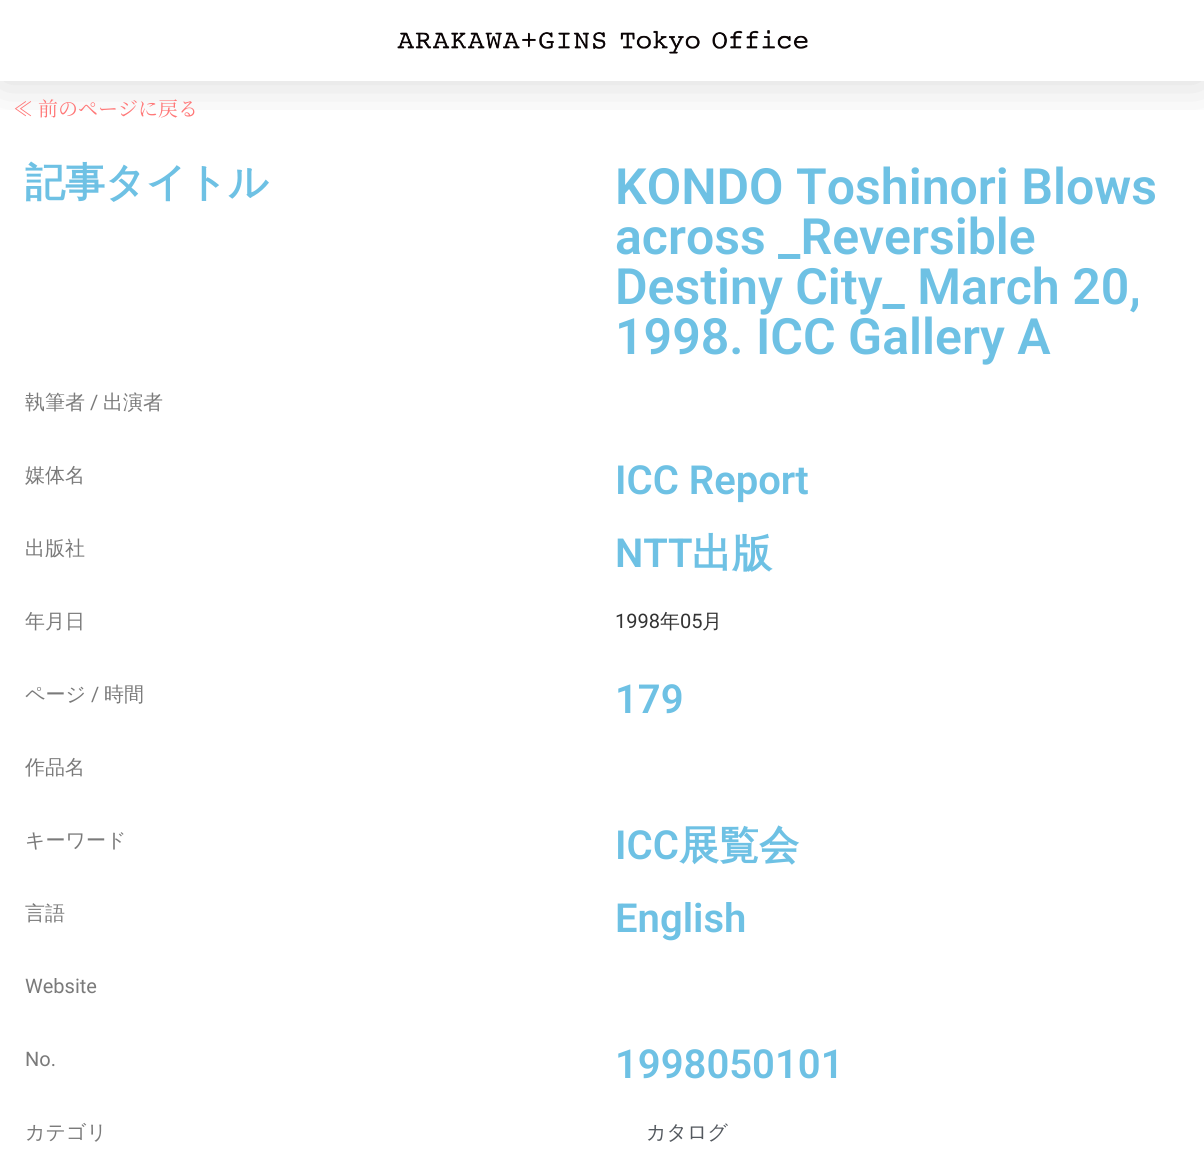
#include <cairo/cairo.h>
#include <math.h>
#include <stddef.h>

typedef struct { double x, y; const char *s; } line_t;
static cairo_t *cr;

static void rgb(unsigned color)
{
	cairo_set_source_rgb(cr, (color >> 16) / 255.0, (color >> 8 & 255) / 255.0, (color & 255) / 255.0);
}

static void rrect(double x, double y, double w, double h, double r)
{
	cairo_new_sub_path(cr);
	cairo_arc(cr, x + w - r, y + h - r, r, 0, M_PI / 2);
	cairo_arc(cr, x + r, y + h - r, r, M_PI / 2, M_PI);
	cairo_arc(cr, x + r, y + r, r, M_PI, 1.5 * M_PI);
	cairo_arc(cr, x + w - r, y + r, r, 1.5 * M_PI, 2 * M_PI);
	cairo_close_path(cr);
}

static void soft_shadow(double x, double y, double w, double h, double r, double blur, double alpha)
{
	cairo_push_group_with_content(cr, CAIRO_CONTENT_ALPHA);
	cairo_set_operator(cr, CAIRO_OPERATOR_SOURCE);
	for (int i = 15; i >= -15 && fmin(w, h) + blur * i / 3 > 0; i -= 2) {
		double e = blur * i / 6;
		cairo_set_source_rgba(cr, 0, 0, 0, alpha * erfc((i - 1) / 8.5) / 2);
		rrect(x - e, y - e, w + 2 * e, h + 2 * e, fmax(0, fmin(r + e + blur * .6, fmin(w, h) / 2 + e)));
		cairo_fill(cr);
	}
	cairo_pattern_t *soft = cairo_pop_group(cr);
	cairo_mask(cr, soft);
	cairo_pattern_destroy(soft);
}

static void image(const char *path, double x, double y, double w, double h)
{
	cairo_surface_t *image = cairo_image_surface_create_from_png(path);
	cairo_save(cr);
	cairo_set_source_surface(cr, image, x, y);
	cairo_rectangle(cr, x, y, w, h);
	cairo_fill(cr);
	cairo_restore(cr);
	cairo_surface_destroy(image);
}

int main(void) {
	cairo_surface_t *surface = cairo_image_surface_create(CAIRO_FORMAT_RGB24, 1204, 1160);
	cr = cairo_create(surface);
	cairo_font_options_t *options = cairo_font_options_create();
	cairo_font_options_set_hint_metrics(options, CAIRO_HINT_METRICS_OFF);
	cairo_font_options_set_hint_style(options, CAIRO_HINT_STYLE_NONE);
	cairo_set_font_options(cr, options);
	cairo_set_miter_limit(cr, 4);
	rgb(0xffffff);
	cairo_paint(cr);
	cairo_save(cr);
	cairo_rectangle(cr, 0, 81, 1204, 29);
	cairo_clip(cr);
	rgb(0x000000);
	soft_shadow(0, 0, 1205, 81, 0, 25, 0.16);
	cairo_restore(cr);
	image("img/1.png", 397, 30, 411, 24);
	cairo_select_font_face(cr, "Noto Serif JP", CAIRO_FONT_SLANT_NORMAL, CAIRO_FONT_WEIGHT_NORMAL);
	cairo_set_font_size(cr, 20);
	rgb(0xff7777);
	cairo_move_to(cr, 13, 116);
	cairo_show_text(cr, "≪ 前のページに戻る");
	cairo_select_font_face(cr, "WenQuanYi Zen Hei", CAIRO_FONT_SLANT_NORMAL, CAIRO_FONT_WEIGHT_BOLD);
	cairo_set_font_size(cr, 40);
	rgb(0x6ec1e4);
	cairo_move_to(cr, 25, 196);
	cairo_show_text(cr, "記事タイトル");
	cairo_select_font_face(cr, "Roboto SemiBold", CAIRO_FONT_SLANT_NORMAL, CAIRO_FONT_WEIGHT_NORMAL);
	cairo_set_font_size(cr, 50);
	{
		static const line_t items[] = {
			{615, 204, "KONDO Toshinori Blows"},
			{615, 254, "across _Reversible"},
			{615, 304, "Destiny City_ March 20,"},
			{615, 354, "1998. ICC Gallery A"},
		};
		for (size_t i = 0; i < sizeof items / sizeof *items; i++) {
			cairo_move_to(cr, items[i].x, items[i].y);
			cairo_show_text(cr, items[i].s);
		}
	}
	cairo_select_font_face(cr, "WenQuanYi Zen Hei Medium", CAIRO_FONT_SLANT_NORMAL, CAIRO_FONT_WEIGHT_NORMAL);
	cairo_set_font_size(cr, 20);
	rgb(0x7a7a7a);
	cairo_move_to(cr, 25, 409);
	cairo_show_text(cr, "執筆者");
	cairo_select_font_face(cr, "Roboto", CAIRO_FONT_SLANT_NORMAL, CAIRO_FONT_WEIGHT_NORMAL);
	cairo_move_to(cr, 90, 409);
	cairo_show_text(cr, "/");
	cairo_select_font_face(cr, "WenQuanYi Zen Hei Medium", CAIRO_FONT_SLANT_NORMAL, CAIRO_FONT_WEIGHT_NORMAL);
	cairo_move_to(cr, 103, 409);
	cairo_show_text(cr, "出演者");
	cairo_move_to(cr, 25, 482);
	cairo_show_text(cr, "媒体名");
	cairo_select_font_face(cr, "Roboto SemiBold", CAIRO_FONT_SLANT_NORMAL, CAIRO_FONT_WEIGHT_NORMAL);
	cairo_set_font_size(cr, 40);
	rgb(0x6ec1e4);
	cairo_move_to(cr, 615, 494);
	cairo_show_text(cr, "ICC Report");
	cairo_select_font_face(cr, "WenQuanYi Zen Hei Medium", CAIRO_FONT_SLANT_NORMAL, CAIRO_FONT_WEIGHT_NORMAL);
	cairo_set_font_size(cr, 20);
	rgb(0x7a7a7a);
	cairo_move_to(cr, 25, 555);
	cairo_show_text(cr, "出版社");
	cairo_select_font_face(cr, "Roboto SemiBold", CAIRO_FONT_SLANT_NORMAL, CAIRO_FONT_WEIGHT_NORMAL);
	cairo_set_font_size(cr, 40);
	rgb(0x6ec1e4);
	cairo_move_to(cr, 615, 567);
	cairo_show_text(cr, "NTT");
	cairo_select_font_face(cr, "WenQuanYi Zen Hei", CAIRO_FONT_SLANT_NORMAL, CAIRO_FONT_WEIGHT_BOLD);
	cairo_move_to(cr, 692, 567);
	cairo_show_text(cr, "出版");
	cairo_select_font_face(cr, "WenQuanYi Zen Hei Medium", CAIRO_FONT_SLANT_NORMAL, CAIRO_FONT_WEIGHT_NORMAL);
	cairo_set_font_size(cr, 20);
	rgb(0x7a7a7a);
	cairo_move_to(cr, 25, 628);
	cairo_show_text(cr, "年月日");
	cairo_select_font_face(cr, "Roboto", CAIRO_FONT_SLANT_NORMAL, CAIRO_FONT_WEIGHT_NORMAL);
	rgb(0x333333);
	cairo_move_to(cr, 615, 628);
	cairo_show_text(cr, "1998");
	cairo_select_font_face(cr, "WenQuanYi Zen Hei Medium", CAIRO_FONT_SLANT_NORMAL, CAIRO_FONT_WEIGHT_NORMAL);
	cairo_move_to(cr, 660, 628);
	cairo_show_text(cr, "年");
	cairo_select_font_face(cr, "Roboto", CAIRO_FONT_SLANT_NORMAL, CAIRO_FONT_WEIGHT_NORMAL);
	cairo_move_to(cr, 680, 628);
	cairo_show_text(cr, "05");
	cairo_select_font_face(cr, "WenQuanYi Zen Hei Medium", CAIRO_FONT_SLANT_NORMAL, CAIRO_FONT_WEIGHT_NORMAL);
	cairo_move_to(cr, 702, 628);
	cairo_show_text(cr, "月");
	rgb(0x7a7a7a);
	cairo_move_to(cr, 25, 701);
	cairo_show_text(cr, "ページ");
	cairo_select_font_face(cr, "Roboto", CAIRO_FONT_SLANT_NORMAL, CAIRO_FONT_WEIGHT_NORMAL);
	cairo_move_to(cr, 91, 701);
	cairo_show_text(cr, "/");
	cairo_select_font_face(cr, "WenQuanYi Zen Hei Medium", CAIRO_FONT_SLANT_NORMAL, CAIRO_FONT_WEIGHT_NORMAL);
	cairo_move_to(cr, 104, 701);
	cairo_show_text(cr, "時間");
	cairo_select_font_face(cr, "Roboto SemiBold", CAIRO_FONT_SLANT_NORMAL, CAIRO_FONT_WEIGHT_NORMAL);
	cairo_set_font_size(cr, 40);
	rgb(0x6ec1e4);
	cairo_move_to(cr, 615, 713);
	cairo_show_text(cr, "179");
	cairo_select_font_face(cr, "WenQuanYi Zen Hei Medium", CAIRO_FONT_SLANT_NORMAL, CAIRO_FONT_WEIGHT_NORMAL);
	cairo_set_font_size(cr, 20);
	rgb(0x7a7a7a);
	cairo_move_to(cr, 25, 774);
	cairo_show_text(cr, "作品名");
	cairo_move_to(cr, 25, 847);
	cairo_show_text(cr, "キーワード");
	cairo_select_font_face(cr, "Roboto SemiBold", CAIRO_FONT_SLANT_NORMAL, CAIRO_FONT_WEIGHT_NORMAL);
	cairo_set_font_size(cr, 40);
	rgb(0x6ec1e4);
	cairo_move_to(cr, 615, 859);
	cairo_show_text(cr, "ICC");
	cairo_select_font_face(cr, "WenQuanYi Zen Hei", CAIRO_FONT_SLANT_NORMAL, CAIRO_FONT_WEIGHT_BOLD);
	cairo_move_to(cr, 679, 859);
	cairo_show_text(cr, "展覧会");
	cairo_select_font_face(cr, "WenQuanYi Zen Hei Medium", CAIRO_FONT_SLANT_NORMAL, CAIRO_FONT_WEIGHT_NORMAL);
	cairo_set_font_size(cr, 20);
	rgb(0x7a7a7a);
	cairo_move_to(cr, 25, 920);
	cairo_show_text(cr, "言語");
	cairo_select_font_face(cr, "Roboto SemiBold", CAIRO_FONT_SLANT_NORMAL, CAIRO_FONT_WEIGHT_NORMAL);
	cairo_set_font_size(cr, 40);
	rgb(0x6ec1e4);
	cairo_move_to(cr, 615, 932);
	cairo_show_text(cr, "English");
	cairo_select_font_face(cr, "Roboto", CAIRO_FONT_SLANT_NORMAL, CAIRO_FONT_WEIGHT_NORMAL);
	cairo_set_font_size(cr, 20);
	rgb(0x7a7a7a);
	cairo_move_to(cr, 25, 993);
	cairo_show_text(cr, "Website");
	cairo_move_to(cr, 25, 1066);
	cairo_show_text(cr, "No.");
	cairo_select_font_face(cr, "Roboto SemiBold", CAIRO_FONT_SLANT_NORMAL, CAIRO_FONT_WEIGHT_NORMAL);
	cairo_set_font_size(cr, 40);
	rgb(0x6ec1e4);
	cairo_move_to(cr, 615, 1078);
	cairo_show_text(cr, "1998050101");
	cairo_select_font_face(cr, "WenQuanYi Zen Hei Medium", CAIRO_FONT_SLANT_NORMAL, CAIRO_FONT_WEIGHT_NORMAL);
	cairo_set_font_size(cr, 20);
	rgb(0x7a7a7a);
	cairo_move_to(cr, 25, 1139);
	cairo_show_text(cr, "カテゴリ");
	rgb(0x54595f);
	cairo_move_to(cr, 646, 1139);
	cairo_show_text(cr, "カタログ");
	cairo_surface_write_to_png(surface, "page.png");
	cairo_font_options_destroy(options);
	cairo_destroy(cr);
	cairo_surface_destroy(surface);
	return 0;
}
